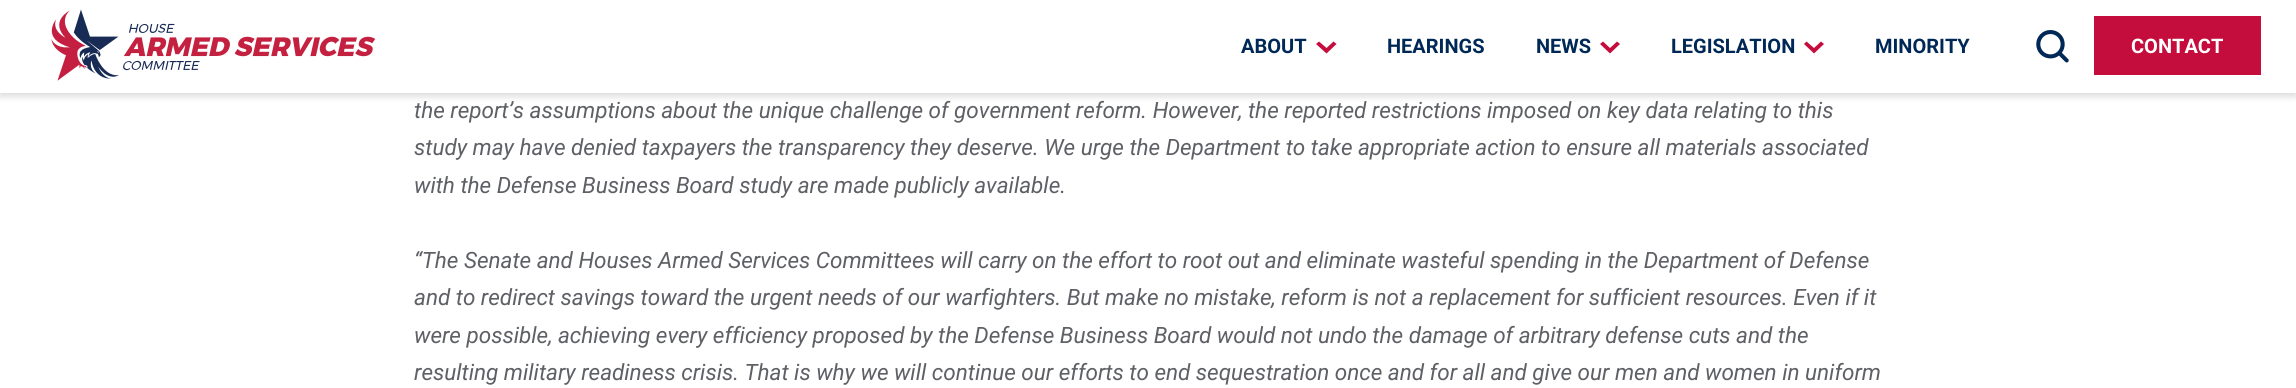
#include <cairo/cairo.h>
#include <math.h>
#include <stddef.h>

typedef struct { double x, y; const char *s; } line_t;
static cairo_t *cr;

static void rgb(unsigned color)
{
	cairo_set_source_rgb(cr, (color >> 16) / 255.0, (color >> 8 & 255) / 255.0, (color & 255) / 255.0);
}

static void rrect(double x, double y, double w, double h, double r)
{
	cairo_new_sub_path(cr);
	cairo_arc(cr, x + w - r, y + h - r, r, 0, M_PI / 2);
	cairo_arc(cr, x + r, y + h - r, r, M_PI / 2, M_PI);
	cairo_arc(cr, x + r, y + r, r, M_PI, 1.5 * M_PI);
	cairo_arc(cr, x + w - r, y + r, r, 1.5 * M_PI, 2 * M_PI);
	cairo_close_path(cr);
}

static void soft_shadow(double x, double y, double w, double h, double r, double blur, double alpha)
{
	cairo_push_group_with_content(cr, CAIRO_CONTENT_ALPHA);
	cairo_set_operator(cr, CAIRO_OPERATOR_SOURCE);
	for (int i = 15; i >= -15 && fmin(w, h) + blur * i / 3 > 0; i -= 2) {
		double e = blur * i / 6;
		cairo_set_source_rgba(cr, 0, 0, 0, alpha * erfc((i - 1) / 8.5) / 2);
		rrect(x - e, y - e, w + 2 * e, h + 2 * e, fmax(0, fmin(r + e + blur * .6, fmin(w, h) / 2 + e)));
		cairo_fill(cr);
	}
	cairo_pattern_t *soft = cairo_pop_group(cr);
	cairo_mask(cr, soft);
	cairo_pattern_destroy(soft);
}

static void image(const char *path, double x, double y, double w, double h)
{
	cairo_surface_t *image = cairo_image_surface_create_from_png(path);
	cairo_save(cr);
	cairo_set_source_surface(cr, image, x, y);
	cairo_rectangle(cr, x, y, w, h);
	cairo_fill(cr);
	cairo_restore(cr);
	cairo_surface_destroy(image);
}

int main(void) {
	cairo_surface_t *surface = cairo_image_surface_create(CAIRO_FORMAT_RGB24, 2296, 388);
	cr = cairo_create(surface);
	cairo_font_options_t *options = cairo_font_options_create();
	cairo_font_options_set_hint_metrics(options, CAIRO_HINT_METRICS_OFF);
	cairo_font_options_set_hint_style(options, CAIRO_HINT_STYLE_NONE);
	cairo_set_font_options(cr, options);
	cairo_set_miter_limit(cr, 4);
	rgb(0xffffff);
	cairo_paint(cr);
	rgb(0x000000);
	soft_shadow(0, 4, 2296, 92, 0, 4, 0.16);
	rgb(0xffffff);
	cairo_rectangle(cr, 0, 0, 2296, 93);
	cairo_fill(cr);
	image("img/1.png", 51, 9, 325, 72);
	rgb(0xc40d3c);
	cairo_new_path(cr);
	cairo_move_to(cr, 1326.5, 53.5);
	cairo_line_to(cr, 1316, 44);
	cairo_line_to(cr, 1319, 41.5);
	cairo_line_to(cr, 1326.5, 48);
	cairo_line_to(cr, 1333.5, 41.5);
	cairo_line_to(cr, 1336.5, 44);
	cairo_close_path(cr);
	cairo_fill(cr);
	cairo_new_path(cr);
	cairo_move_to(cr, 1610, 53.5);
	cairo_line_to(cr, 1600, 44);
	cairo_line_to(cr, 1603, 41.5);
	cairo_line_to(cr, 1610, 48);
	cairo_line_to(cr, 1617, 41.5);
	cairo_line_to(cr, 1620, 44);
	cairo_close_path(cr);
	cairo_fill(cr);
	cairo_new_path(cr);
	cairo_move_to(cr, 1814, 53.5);
	cairo_line_to(cr, 1804, 44);
	cairo_line_to(cr, 1806.5, 41.5);
	cairo_line_to(cr, 1814, 48);
	cairo_line_to(cr, 1821, 41.5);
	cairo_line_to(cr, 1824, 44);
	cairo_close_path(cr);
	cairo_fill(cr);
	image("img/2.png", 2036, 30, 33, 33);
	cairo_rectangle(cr, 2094, 16, 167, 59);
	cairo_fill(cr);
	cairo_select_font_face(cr, "Roboto", CAIRO_FONT_SLANT_NORMAL, CAIRO_FONT_WEIGHT_BOLD);
	cairo_set_font_size(cr, 20);
	rgb(0x002856);
	{
		static const line_t items[] = {
			{1241, 53, "ABOUT"},
			{1387, 53, "HEARINGS"},
			{1536, 53, "NEWS"},
			{1671, 53, "LEGISLATION"},
			{1875, 53, "MINORITY"},
		};
		for (size_t i = 0; i < sizeof items / sizeof *items; i++) {
			cairo_move_to(cr, items[i].x, items[i].y);
			cairo_show_text(cr, items[i].s);
		}
	}
	rgb(0xffffff);
	cairo_move_to(cr, 2131, 53);
	cairo_show_text(cr, "CONTACT");
	cairo_select_font_face(cr, "Roboto", CAIRO_FONT_SLANT_ITALIC, CAIRO_FONT_WEIGHT_NORMAL);
	cairo_set_font_size(cr, 22.5);
	rgb(0x5e6065);
	{
		static const line_t items[] = {
			{414, 118, "the report’s assumptions about the unique challenge of government reform. However, the reported restrictions imposed on key data relating to this"},
			{414, 155, "study may have denied taxpayers the transparency they deserve. We urge the Department to take appropriate action to ensure all materials associated"},
			{414, 193, "with the Defense Business Board study are made publicly available."},
			{414, 268, "“The Senate and Houses Armed Services Committees will carry on the effort to root out and eliminate wasteful spending in the Department of Defense"},
			{414, 305, "and to redirect savings toward the urgent needs of our warfighters. But make no mistake, reform is not a replacement for sufficient resources. Even if it"},
			{414, 343, "were possible, achieving every efficiency proposed by the Defense Business Board would not undo the damage of arbitrary defense cuts and the"},
			{414, 380, "resulting military readiness crisis. That is why we will continue our efforts to end sequestration once and for all and give our men and women in uniform"},
		};
		for (size_t i = 0; i < sizeof items / sizeof *items; i++) {
			cairo_move_to(cr, items[i].x, items[i].y);
			cairo_show_text(cr, items[i].s);
		}
	}
	cairo_surface_write_to_png(surface, "page.png");
	cairo_font_options_destroy(options);
	cairo_destroy(cr);
	cairo_surface_destroy(surface);
	return 0;
}
